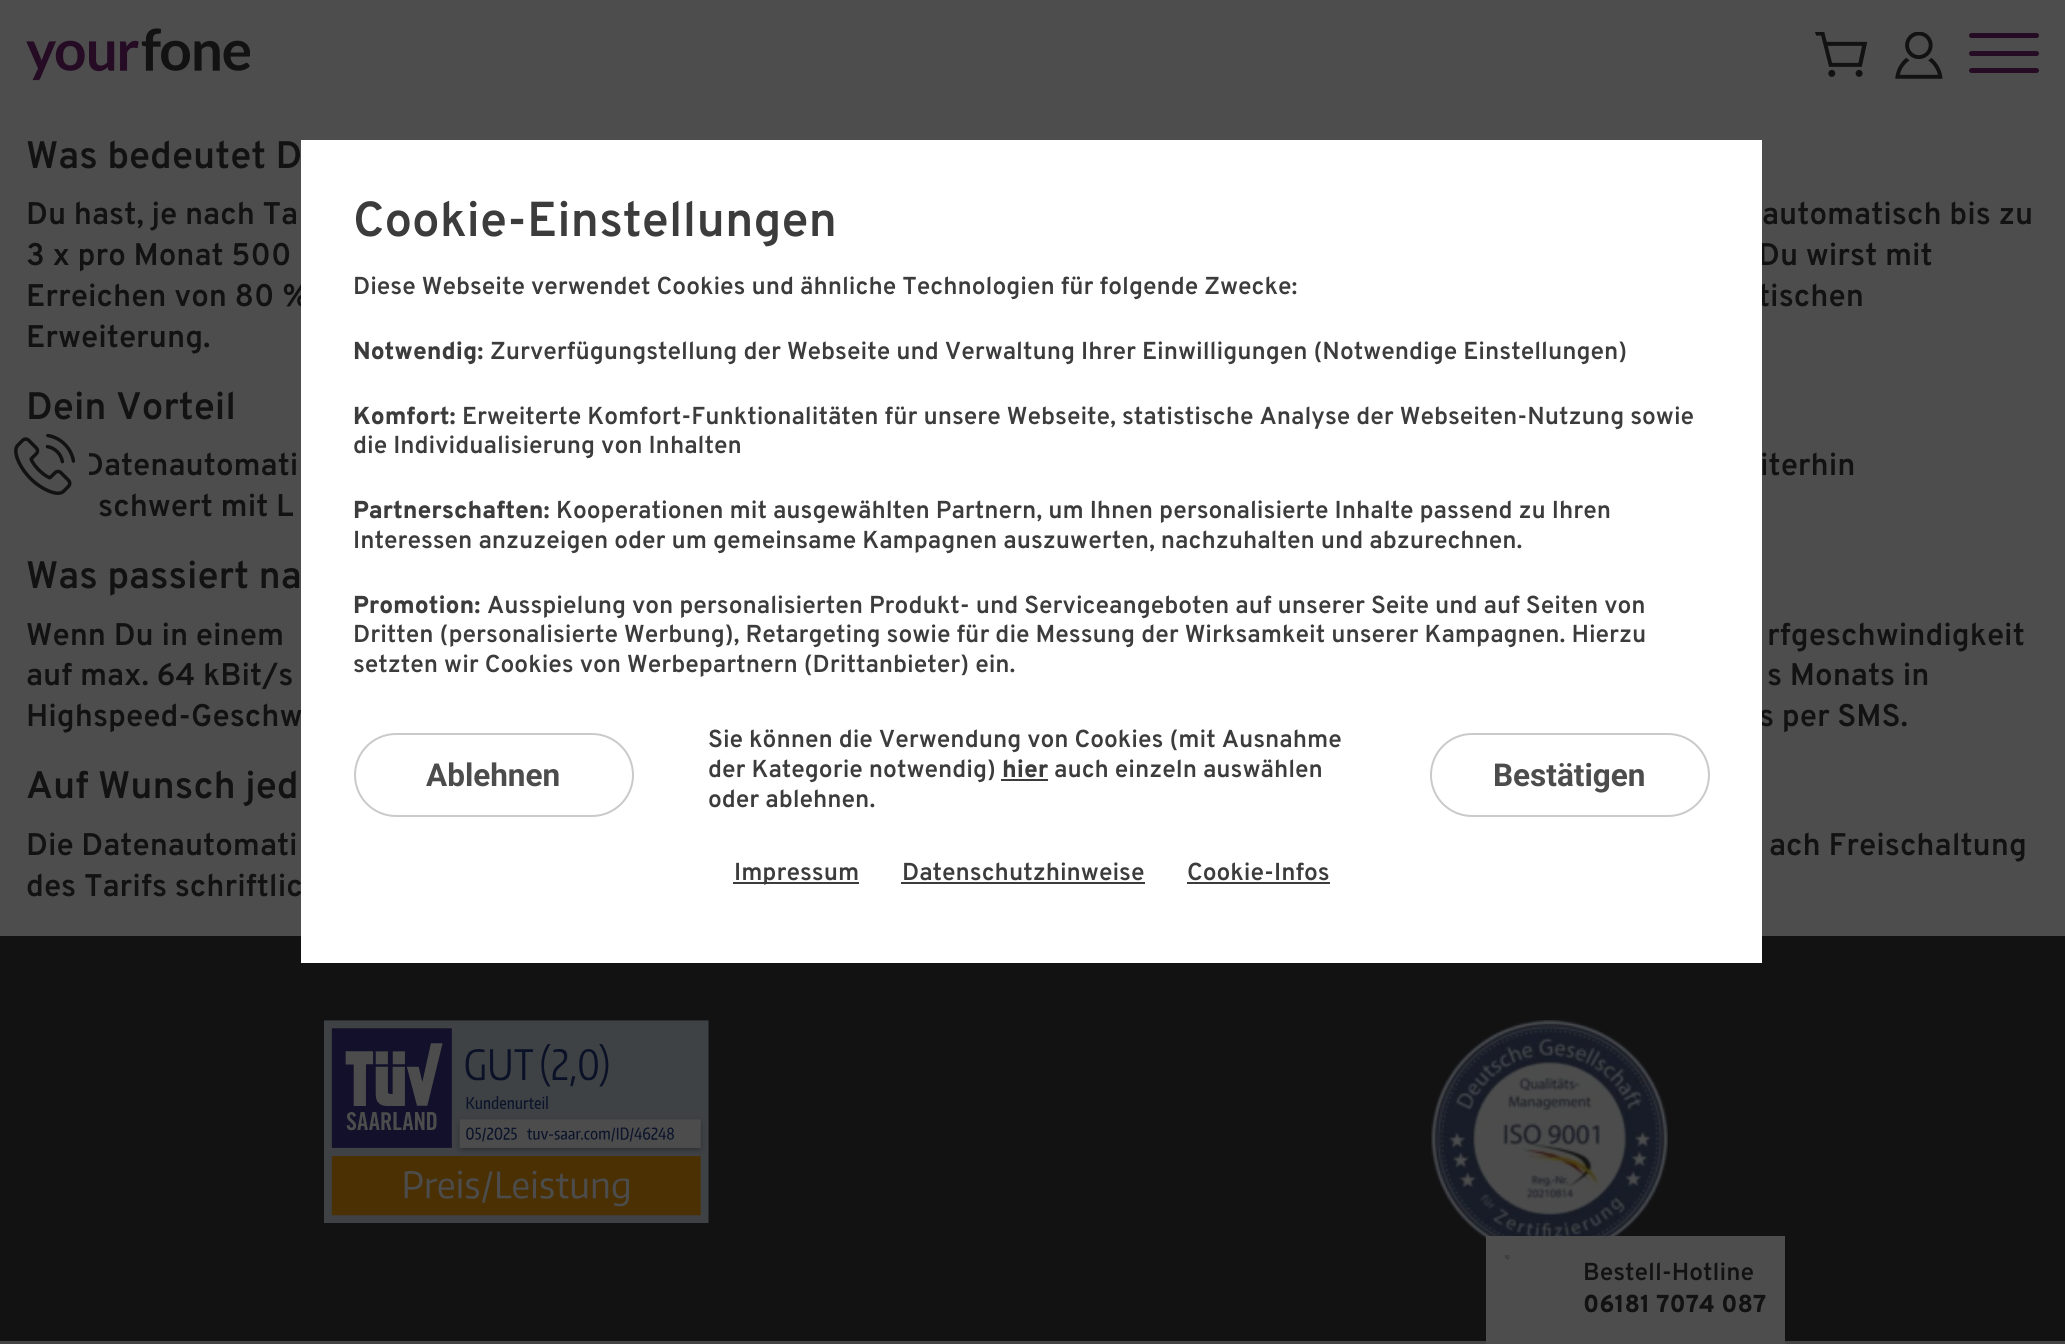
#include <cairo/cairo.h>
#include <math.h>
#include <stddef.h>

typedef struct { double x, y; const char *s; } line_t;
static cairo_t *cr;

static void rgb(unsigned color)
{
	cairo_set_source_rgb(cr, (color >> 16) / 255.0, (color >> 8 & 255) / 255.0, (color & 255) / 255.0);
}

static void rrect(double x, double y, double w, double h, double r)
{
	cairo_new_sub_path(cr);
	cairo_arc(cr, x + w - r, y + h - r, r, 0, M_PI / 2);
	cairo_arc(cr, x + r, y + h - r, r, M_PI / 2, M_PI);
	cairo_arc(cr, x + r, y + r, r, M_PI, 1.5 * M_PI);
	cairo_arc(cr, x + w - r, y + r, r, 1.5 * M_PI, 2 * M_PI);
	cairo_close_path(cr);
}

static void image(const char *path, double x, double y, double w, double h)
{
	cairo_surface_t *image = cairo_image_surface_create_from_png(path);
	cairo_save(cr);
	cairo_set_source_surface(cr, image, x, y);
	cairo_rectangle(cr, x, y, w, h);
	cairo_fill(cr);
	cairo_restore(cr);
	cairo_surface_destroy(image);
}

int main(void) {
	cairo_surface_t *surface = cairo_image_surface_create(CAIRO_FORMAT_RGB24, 2065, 1344);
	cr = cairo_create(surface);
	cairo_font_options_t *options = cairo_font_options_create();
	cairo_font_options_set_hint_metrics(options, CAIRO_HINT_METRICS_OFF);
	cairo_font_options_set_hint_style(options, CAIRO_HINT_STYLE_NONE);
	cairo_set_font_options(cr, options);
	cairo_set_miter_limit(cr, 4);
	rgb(0x4d4d4d);
	cairo_paint(cr);
	image("img/1.png", 26, 28, 224, 53);
	image("img/2.png", 1815, 32, 52, 45);
	image("img/3.png", 1895, 32, 48, 47);
	rgb(0x260b24);
	rrect(1969, 51, 70, 5, 2.5);
	cairo_fill(cr);
	rrect(1969, 33, 70, 5, 2.5);
	cairo_fill(cr);
	rrect(1969, 68, 70, 5, 2.5);
	cairo_fill(cr);
	image("img/4.png", 14, 434, 61, 61);
	rgb(0x444444);
	cairo_rectangle(cr, 0, 1341, 2065, 3);
	cairo_fill(cr);
	rgb(0x121212);
	cairo_rectangle(cr, 0, 936, 2065, 405);
	cairo_fill(cr);
	image("img/5.png", 324, 1020, 385, 203);
	image("img/6.png", 1431, 1020, 237, 220);
	rgb(0x4d4d4d);
	cairo_rectangle(cr, 1486, 1236, 299, 108);
	cairo_fill(cr);
	image("img/7.png", 1505, 1255, 5, 5);
	cairo_select_font_face(cr, "Overpass SemiBold", CAIRO_FONT_SLANT_NORMAL, CAIRO_FONT_WEIGHT_NORMAL);
	cairo_set_font_size(cr, 38.25);
	rgb(0x121212);
	cairo_move_to(cr, 26, 168);
	cairo_show_text(cr, "Was bedeutet D");
	cairo_set_font_size(cr, 31.25);
	{
		static const line_t items[] = {
			{26, 224, "Du hast, je nach Ta"},
			{1762, 224, "automatisch bis zu"},
			{26, 265, "3 x pro Monat 500"},
			{1758, 265, "Du wirst mit"},
			{26, 306, "Erreichen von 80 %"},
			{1758, 306, "tischen"},
			{26, 347, "Erweiterung."},
		};
		for (size_t i = 0; i < sizeof items / sizeof *items; i++) {
			cairo_move_to(cr, items[i].x, items[i].y);
			cairo_show_text(cr, items[i].s);
		}
	}
	cairo_set_font_size(cr, 38.25);
	cairo_move_to(cr, 26, 419);
	cairo_show_text(cr, "Dein Vorteil");
	cairo_set_font_size(cr, 31.25);
	{
		static const line_t items[] = {
			{82, 475, "Datenautomati"},
			{1760, 475, "iterhin"},
			{98, 516, "schwert mit L"},
		};
		for (size_t i = 0; i < sizeof items / sizeof *items; i++) {
			cairo_move_to(cr, items[i].x, items[i].y);
			cairo_show_text(cr, items[i].s);
		}
	}
	cairo_set_font_size(cr, 38.25);
	cairo_move_to(cr, 26, 588);
	cairo_show_text(cr, "Was passiert na");
	cairo_set_font_size(cr, 31.25);
	{
		static const line_t items[] = {
			{26, 645, "Wenn Du in einem"},
			{1767, 645, "rfgeschwindigkeit"},
			{26, 685, "auf max. 64 kBit/s"},
			{1767, 685, "s Monats in"},
			{26, 726, "Highspeed-Geschw"},
			{1759, 726, "s per SMS."},
		};
		for (size_t i = 0; i < sizeof items / sizeof *items; i++) {
			cairo_move_to(cr, items[i].x, items[i].y);
			cairo_show_text(cr, items[i].s);
		}
	}
	cairo_set_font_size(cr, 38.25);
	cairo_move_to(cr, 26, 798);
	cairo_show_text(cr, "Auf Wunsch jed");
	cairo_set_font_size(cr, 31.25);
	{
		static const line_t items[] = {
			{26, 855, "Die Datenautomati"},
			{1769, 855, "ach Freischaltung"},
			{26, 896, "des Tarifs schriftlic"},
		};
		for (size_t i = 0; i < sizeof items / sizeof *items; i++) {
			cairo_move_to(cr, items[i].x, items[i].y);
			cairo_show_text(cr, items[i].s);
		}
	}
	rgb(0x4d4d4d);
	cairo_rectangle(cr, 84, 453, 5, 22);
	cairo_fill(cr);
	rgb(0xffffff);
	cairo_rectangle(cr, 301, 140, 1461, 823);
	cairo_fill(cr);
	cairo_set_font_size(cr, 49);
	rgb(0x3c3c3c);
	cairo_move_to(cr, 353, 236);
	cairo_show_text(cr, "Cookie-Einstellungen");
	cairo_set_font_size(cr, 24.5);
	cairo_move_to(cr, 353, 294);
	cairo_show_text(cr, "Diese Webseite verwendet Cookies und ähnliche Technologien für folgende Zwecke:");
	cairo_select_font_face(cr, "Overpass ExtraBold", CAIRO_FONT_SLANT_NORMAL, CAIRO_FONT_WEIGHT_NORMAL);
	cairo_move_to(cr, 353, 359);
	cairo_show_text(cr, "Notwendig:");
	cairo_select_font_face(cr, "Overpass SemiBold", CAIRO_FONT_SLANT_NORMAL, CAIRO_FONT_WEIGHT_NORMAL);
	cairo_move_to(cr, 490, 359);
	cairo_show_text(cr, "Zurverfügungstellung der Webseite und Verwaltung Ihrer Einwilligungen (Notwendige Einstellungen)");
	cairo_select_font_face(cr, "Overpass ExtraBold", CAIRO_FONT_SLANT_NORMAL, CAIRO_FONT_WEIGHT_NORMAL);
	cairo_move_to(cr, 353, 424);
	cairo_show_text(cr, "Komfort:");
	cairo_select_font_face(cr, "Overpass SemiBold", CAIRO_FONT_SLANT_NORMAL, CAIRO_FONT_WEIGHT_NORMAL);
	cairo_move_to(cr, 462, 424);
	cairo_show_text(cr, "Erweiterte Komfort-Funktionalitäten für unsere Webseite, statistische Analyse der Webseiten-Nutzung sowie");
	cairo_move_to(cr, 353, 453);
	cairo_show_text(cr, "die Individualisierung von Inhalten");
	cairo_select_font_face(cr, "Overpass ExtraBold", CAIRO_FONT_SLANT_NORMAL, CAIRO_FONT_WEIGHT_NORMAL);
	cairo_move_to(cr, 353, 518);
	cairo_show_text(cr, "Partnerschaften:");
	cairo_select_font_face(cr, "Overpass SemiBold", CAIRO_FONT_SLANT_NORMAL, CAIRO_FONT_WEIGHT_NORMAL);
	cairo_move_to(cr, 556, 518);
	cairo_show_text(cr, "Kooperationen mit ausgewählten Partnern, um Ihnen personalisierte Inhalte passend zu Ihren");
	cairo_move_to(cr, 353, 548);
	cairo_show_text(cr, "Interessen anzuzeigen oder um gemeinsame Kampagnen auszuwerten, nachzuhalten und abzurechnen.");
	cairo_select_font_face(cr, "Overpass ExtraBold", CAIRO_FONT_SLANT_NORMAL, CAIRO_FONT_WEIGHT_NORMAL);
	cairo_move_to(cr, 353, 613);
	cairo_show_text(cr, "Promotion:");
	cairo_select_font_face(cr, "Overpass SemiBold", CAIRO_FONT_SLANT_NORMAL, CAIRO_FONT_WEIGHT_NORMAL);
	{
		static const line_t items[] = {
			{487, 613, "Ausspielung von personalisierten Produkt- und Serviceangeboten auf unserer Seite und auf Seiten von"},
			{353, 642, "Dritten (personalisierte Werbung), Retargeting sowie für die Messung der Wirksamkeit unserer Kampagnen. Hierzu"},
			{353, 672, "setzten wir Cookies von Werbepartnern (Drittanbieter) ein."},
		};
		for (size_t i = 0; i < sizeof items / sizeof *items; i++) {
			cairo_move_to(cr, items[i].x, items[i].y);
			cairo_show_text(cr, items[i].s);
		}
	}
	rrect(355, 734, 278, 82, 41);
	rgb(0xcacaca);
	cairo_stroke(cr);
	cairo_select_font_face(cr, "Roboto", CAIRO_FONT_SLANT_NORMAL, CAIRO_FONT_WEIGHT_BOLD);
	cairo_set_font_size(cr, 31.5);
	rgb(0x4c4c4c);
	cairo_move_to(cr, 426, 786);
	cairo_show_text(cr, "Ablehnen");
	cairo_select_font_face(cr, "Overpass SemiBold", CAIRO_FONT_SLANT_NORMAL, CAIRO_FONT_WEIGHT_NORMAL);
	cairo_set_font_size(cr, 24.5);
	rgb(0x3c3c3c);
	cairo_move_to(cr, 708, 747);
	cairo_show_text(cr, "Sie können die Verwendung von Cookies (mit Ausnahme");
	cairo_move_to(cr, 708, 777);
	cairo_show_text(cr, "der Kategorie notwendig)");
	cairo_select_font_face(cr, "Overpass ExtraBold", CAIRO_FONT_SLANT_NORMAL, CAIRO_FONT_WEIGHT_NORMAL);
	cairo_move_to(cr, 1002, 777);
	cairo_show_text(cr, "hier");
	cairo_rectangle(cr, 1001, 779, 47, 2);
	cairo_fill(cr);
	cairo_select_font_face(cr, "Overpass SemiBold", CAIRO_FONT_SLANT_NORMAL, CAIRO_FONT_WEIGHT_NORMAL);
	cairo_move_to(cr, 1054, 777);
	cairo_show_text(cr, "auch einzeln auswählen");
	cairo_move_to(cr, 708, 807);
	cairo_show_text(cr, "oder ablehnen.");
	rrect(1431, 734, 278, 82, 41);
	rgb(0xcacaca);
	cairo_stroke(cr);
	cairo_select_font_face(cr, "Roboto", CAIRO_FONT_SLANT_NORMAL, CAIRO_FONT_WEIGHT_BOLD);
	cairo_set_font_size(cr, 31.5);
	rgb(0x4c4c4c);
	cairo_move_to(cr, 1493, 786);
	cairo_show_text(cr, "Bestätigen");
	rgb(0x3c3c3c);
	cairo_rectangle(cr, 733, 882, 126, 2);
	cairo_fill(cr);
	cairo_select_font_face(cr, "Overpass SemiBold", CAIRO_FONT_SLANT_NORMAL, CAIRO_FONT_WEIGHT_NORMAL);
	cairo_set_font_size(cr, 24.5);
	cairo_move_to(cr, 734, 880);
	cairo_show_text(cr, "Impressum");
	cairo_move_to(cr, 902, 880);
	cairo_show_text(cr, "Datenschutzhinweise");
	cairo_rectangle(cr, 901, 882, 244, 2);
	cairo_fill(cr);
	cairo_move_to(cr, 1187, 880);
	cairo_show_text(cr, "Cookie-Infos");
	cairo_rectangle(cr, 1187, 882, 143, 2);
	cairo_fill(cr);
	rgb(0x121212);
	cairo_move_to(cr, 1583, 1280);
	cairo_show_text(cr, "Bestell-Hotline");
	cairo_select_font_face(cr, "Overpass ExtraBold", CAIRO_FONT_SLANT_NORMAL, CAIRO_FONT_WEIGHT_NORMAL);
	cairo_move_to(cr, 1583, 1312);
	cairo_show_text(cr, "06181 7074 087");
	cairo_surface_write_to_png(surface, "page.png");
	cairo_font_options_destroy(options);
	cairo_destroy(cr);
	cairo_surface_destroy(surface);
	return 0;
}
